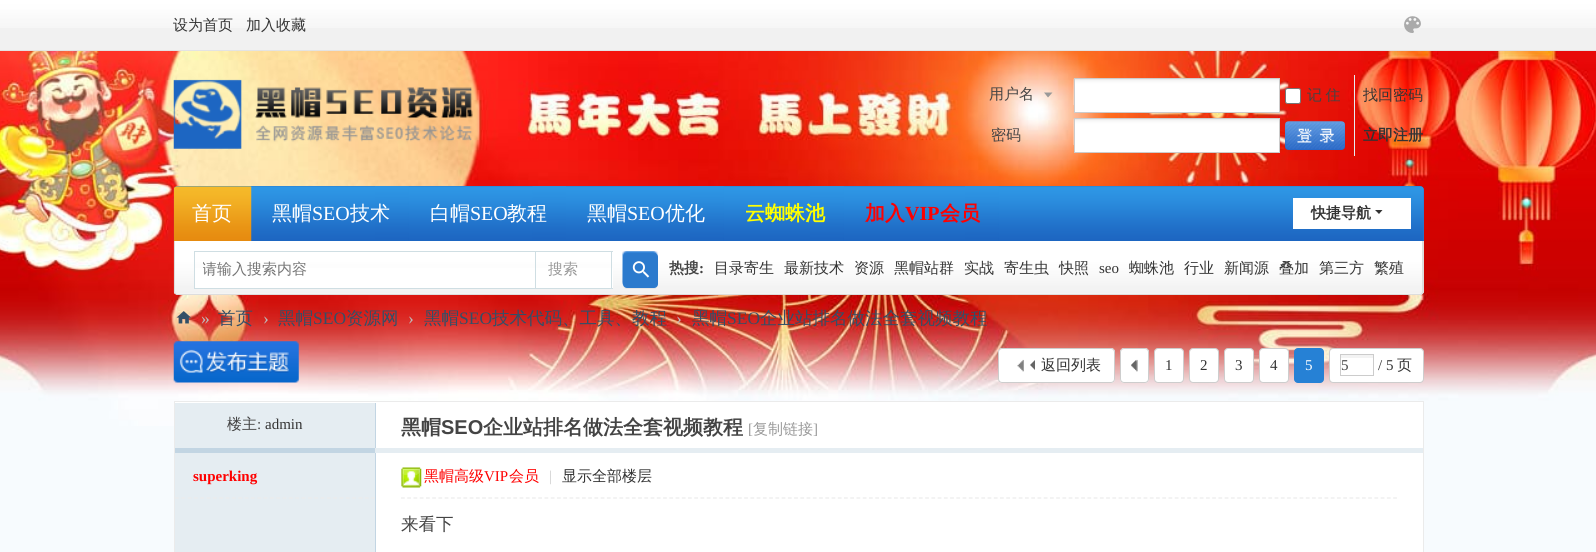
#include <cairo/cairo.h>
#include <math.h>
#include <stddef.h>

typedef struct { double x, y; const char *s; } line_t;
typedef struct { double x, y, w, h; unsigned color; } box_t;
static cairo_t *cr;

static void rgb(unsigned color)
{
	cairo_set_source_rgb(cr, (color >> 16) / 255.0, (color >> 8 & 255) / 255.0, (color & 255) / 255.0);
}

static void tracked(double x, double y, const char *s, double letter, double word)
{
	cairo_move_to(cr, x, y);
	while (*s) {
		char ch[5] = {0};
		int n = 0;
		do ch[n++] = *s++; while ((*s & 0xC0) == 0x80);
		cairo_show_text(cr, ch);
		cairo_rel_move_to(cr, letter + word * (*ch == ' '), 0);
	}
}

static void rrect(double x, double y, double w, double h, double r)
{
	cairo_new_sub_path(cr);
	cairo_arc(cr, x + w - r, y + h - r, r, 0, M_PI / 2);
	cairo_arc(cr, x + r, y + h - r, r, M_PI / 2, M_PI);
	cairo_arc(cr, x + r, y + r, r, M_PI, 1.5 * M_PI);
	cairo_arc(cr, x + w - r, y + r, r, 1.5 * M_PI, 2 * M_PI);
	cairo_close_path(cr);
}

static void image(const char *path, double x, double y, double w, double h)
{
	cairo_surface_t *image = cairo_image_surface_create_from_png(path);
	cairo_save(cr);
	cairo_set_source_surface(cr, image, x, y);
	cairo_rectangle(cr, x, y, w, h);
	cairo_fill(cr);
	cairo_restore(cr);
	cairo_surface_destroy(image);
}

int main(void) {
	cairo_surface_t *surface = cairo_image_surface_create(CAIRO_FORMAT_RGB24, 1596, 552);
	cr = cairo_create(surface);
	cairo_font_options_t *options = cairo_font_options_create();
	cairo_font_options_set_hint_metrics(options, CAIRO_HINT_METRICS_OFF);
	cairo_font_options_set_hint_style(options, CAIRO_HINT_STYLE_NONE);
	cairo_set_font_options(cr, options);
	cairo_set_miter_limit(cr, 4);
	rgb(0xf7fbfe);
	cairo_paint(cr);
	image("img/1.png", 0, 51, 1596, 375);
	rgb(0xf1f1f1);
	cairo_rectangle(cr, 0, 28, 1596, 22);
	cairo_fill(cr);
	image("img/2.png", 0, 0, 1596, 28);
	rgb(0xe3e3e3);
	cairo_rectangle(cr, 0, 50, 1596, 1);
	cairo_fill(cr);
	image("img/3.png", 1404, 16, 17, 17);
	image("img/4.png", 173, 79, 300, 70);
	rgb(0x999999);
	cairo_new_path(cr);
	cairo_move_to(cr, 1052.5, 92.5);
	cairo_line_to(cr, 1044, 92.5);
	cairo_line_to(cr, 1048, 97.5);
	cairo_close_path(cr);
	cairo_fill(cr);
	rgb(0xffffff);
	cairo_rectangle(cr, 1075, 105, 204, 7);
	cairo_fill(cr);
	image("img/5.png", 1073, 78, 206, 27);
	cairo_rectangle(cr, 1074.5, 78.5, 205, 34);
	rgb(0xcccccc);
	cairo_set_line_width(cr, 1);
	cairo_stroke(cr);
	rgb(0xffffff);
	rrect(1285.5, 88.5, 15, 15, 2);
	cairo_fill_preserve(cr);
	rgb(0x767676);
	cairo_stroke(cr);
	rgb(0xffffff);
	cairo_rectangle(cr, 1075, 145, 204, 7);
	cairo_fill(cr);
	image("img/6.png", 1073, 118, 206, 27);
	cairo_rectangle(cr, 1074.5, 118.5, 205, 34);
	rgb(0xcccccc);
	cairo_stroke(cr);
	rgb(0xe5edf2);
	cairo_rectangle(cr, 1354, 75, 1, 81);
	cairo_fill(cr);
	image("img/7.png", 1285, 121, 60, 29);
	rgb(0x2b7acd);
	cairo_new_path(cr);
	cairo_move_to(cr, 178, 186);
	cairo_line_to(cr, 1420, 186);
	cairo_curve_to(cr, 1422, 186, 1424, 188, 1424, 190);
	cairo_line_to(cr, 1424, 241);
	cairo_line_to(cr, 174, 241);
	cairo_line_to(cr, 174, 190);
	cairo_curve_to(cr, 174, 188, 176, 186, 178, 186);
	cairo_close_path(cr);
	cairo_fill(cr);
	image("img/8.png", 173, 186, 1251, 55);
	image("img/9.png", 173, 186, 79, 55);
	image("img/10.png", 375, 186, 34, 55);
	image("img/11.png", 532, 186, 34, 55);
	image("img/10.png", 690, 186, 34, 55);
	image("img/10.png", 810, 186, 34, 55);
	image("img/10.png", 965, 186, 34, 55);
	rgb(0xffffff);
	cairo_rectangle(cr, 1293, 198, 118, 31);
	cairo_fill(cr);
	rgb(0x333333);
	cairo_new_path(cr);
	cairo_move_to(cr, 1375, 210);
	cairo_line_to(cr, 1382.5, 210);
	cairo_line_to(cr, 1379, 214);
	cairo_close_path(cr);
	cairo_fill(cr);
	rgb(0xffffff);
	cairo_new_path(cr);
	cairo_move_to(cr, 174, 241);
	cairo_line_to(cr, 1424, 241);
	cairo_line_to(cr, 1424, 291);
	cairo_curve_to(cr, 1424, 293, 1422, 295, 1420, 295);
	cairo_line_to(cr, 178, 295);
	cairo_curve_to(cr, 176, 295, 174, 293, 174, 291);
	cairo_close_path(cr);
	cairo_fill(cr);
	image("img/12.png", 173, 241, 1251, 53);
	rgb(0xdddddd);
	cairo_set_fill_rule(cr, CAIRO_FILL_RULE_EVEN_ODD);
	cairo_new_path(cr);
	cairo_move_to(cr, 174, 241);
	cairo_line_to(cr, 1424, 241);
	cairo_line_to(cr, 1424, 291);
	cairo_curve_to(cr, 1424, 293, 1422, 295, 1420, 295);
	cairo_line_to(cr, 178, 295);
	cairo_curve_to(cr, 175, 295, 174, 293, 174, 291);
	cairo_close_path(cr);
	cairo_move_to(cr, 175, 241);
	cairo_line_to(cr, 1422, 241);
	cairo_line_to(cr, 1422, 291);
	cairo_curve_to(cr, 1422, 293, 1421, 294, 1420, 294);
	cairo_line_to(cr, 178, 294);
	cairo_curve_to(cr, 176, 294, 175, 293, 175, 291);
	cairo_close_path(cr);
	cairo_fill(cr);
	{
		static const box_t items[] = {
			{195, 268, 340, 20, 0xffffff},
			{534, 251, 79, 1, 0xcfdee3},
			{536, 268, 77, 20, 0xffffff},
			{611, 251, 1, 38, 0xcfdee3},
			{534, 288, 79, 1, 0xcfdee3},
		};
		for (size_t i = 0; i < sizeof items / sizeof *items; i++) {
			rgb(items[i].color);
			cairo_rectangle(cr, items[i].x, items[i].y, items[i].w, items[i].h);
			cairo_fill(cr);
		}
	}
	cairo_rectangle(cr, 194.5, 251.5, 341, 37);
	cairo_stroke(cr);
	image("img/13.png", 622, 251, 36, 36);
	rgb(0xe5e5e5);
	cairo_set_fill_rule(cr, CAIRO_FILL_RULE_WINDING);
	cairo_new_path(cr);
	cairo_move_to(cr, 623, 285.5);
	cairo_curve_to(cr, 623.5, 287.5, 625, 289, 627, 289);
	cairo_line_to(cr, 654, 289);
	cairo_curve_to(cr, 656, 289, 658, 287, 658, 285);
	cairo_line_to(cr, 658, 258);
	cairo_line_to(cr, 657.5, 256);
	cairo_line_to(cr, 657.5, 279);
	cairo_curve_to(cr, 657.5, 287.5, 657.5, 287.5, 649, 287.5);
	cairo_line_to(cr, 631, 287.5);
	cairo_curve_to(cr, 628.5, 287.5, 624.5, 288.5, 623, 285.5);
	cairo_close_path(cr);
	cairo_fill(cr);
	rgb(0x2b7acd);
	rrect(623, 253, 35, 35, 4);
	cairo_fill(cr);
	image("img/14.png", 632, 261, 18, 17);
	image("img/15.png", 176, 311, 15, 13);
	image("img/16.png", 173, 341, 126, 42);
	rgb(0xffffff);
	rrect(998, 348, 117, 35, 4);
	cairo_fill(cr);
	image("img/17.png", 1017, 359, 7, 13);
	rrect(998.5, 348.5, 116, 34, 3.5);
	rgb(0xcdcdcd);
	cairo_stroke(cr);
	rgb(0x666666);
	cairo_new_path(cr);
	cairo_move_to(cr, 1035, 360);
	cairo_line_to(cr, 1035, 370);
	cairo_line_to(cr, 1030, 365);
	cairo_close_path(cr);
	cairo_fill(cr);
	rgb(0xffffff);
	rrect(1120, 348, 29, 35, 4);
	cairo_fill(cr);
	image("img/18.png", 1131, 359, 7, 13);
	rrect(1120.5, 348.5, 28, 34, 3.5);
	rgb(0xcdcdcd);
	cairo_stroke(cr);
	rgb(0x666666);
	cairo_new_path(cr);
	cairo_move_to(cr, 1136, 360);
	cairo_line_to(cr, 1136, 370);
	cairo_line_to(cr, 1131, 365);
	cairo_close_path(cr);
	cairo_fill(cr);
	rgb(0xffffff);
	rrect(1154.5, 348.5, 29, 34, 3.5);
	cairo_fill_preserve(cr);
	rgb(0xcdcdcd);
	cairo_stroke(cr);
	rgb(0xffffff);
	rrect(1189.5, 348.5, 29, 34, 3.5);
	cairo_fill_preserve(cr);
	rgb(0xcdcdcd);
	cairo_stroke(cr);
	rgb(0xffffff);
	rrect(1224.5, 348.5, 29, 34, 3.5);
	cairo_fill_preserve(cr);
	rgb(0xcdcdcd);
	cairo_stroke(cr);
	rgb(0xffffff);
	rrect(1259.5, 348.5, 29, 34, 3.5);
	cairo_fill_preserve(cr);
	rgb(0xcdcdcd);
	cairo_stroke(cr);
	rgb(0x2681d5);
	rrect(1294.5, 348.5, 29, 34, 3.5);
	cairo_fill_preserve(cr);
	cairo_stroke(cr);
	rgb(0xffffff);
	rrect(1329.5, 348.5, 94, 34, 3.5);
	cairo_fill_preserve(cr);
	rgb(0xcdcdcd);
	cairo_stroke(cr);
	rgb(0xf3f3f3);
	cairo_rectangle(cr, 1340, 355, 34, 3);
	cairo_fill(cr);
	cairo_rectangle(cr, 1340.5, 354.5, 33, 21);
	rgb(0xcccccc);
	cairo_stroke(cr);
	rgb(0xffffff);
	cairo_rectangle(cr, 174.5, 401.5, 1249, 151);
	cairo_fill_preserve(cr);
	rgb(0xebebeb);
	cairo_stroke(cr);
	{
		static const box_t items[] = {
			{375, 403, 1, 46, 0xc2d5e3},
			{175, 403, 200, 45, 0xe5edf2},
			{175, 448, 200, 5, 0xc2d5e3},
			{375, 448, 1048, 5, 0xe5edf2},
			{375, 453, 1, 99, 0xc2d5e3},
			{175, 453, 200, 99, 0xe5edf2},
		};
		for (size_t i = 0; i < sizeof items / sizeof *items; i++) {
			rgb(items[i].color);
			cairo_rectangle(cr, items[i].x, items[i].y, items[i].w, items[i].h);
			cairo_fill(cr);
		}
	}
	cairo_new_path(cr);
	cairo_move_to(cr, 175, 498);
	cairo_line_to(cr, 375, 498);
	rgb(0xebebeb);
	cairo_set_line_width(cr, 1.2);
	cairo_set_dash(cr, (double[]){3.75, 2.58}, 2, 0);
	cairo_stroke(cr);
	cairo_new_path(cr);
	cairo_move_to(cr, 401, 498);
	cairo_line_to(cr, 1397.5, 498);
	cairo_set_dash(cr, (double[]){3.75, 2.49}, 2, 0);
	cairo_stroke(cr);
	image("img/19.png", 401, 467, 21, 21);
	cairo_select_font_face(cr, "WenQuanYi Zen Hei Medium", CAIRO_FONT_SLANT_NORMAL, CAIRO_FONT_WEIGHT_NORMAL);
	cairo_set_font_size(cr, 15);
	rgb(0x333333);
	cairo_move_to(cr, 173, 30);
	cairo_show_text(cr, "设为首页");
	cairo_move_to(cr, 246, 30);
	cairo_show_text(cr, "加入收藏");
	rgb(0x444444);
	cairo_move_to(cr, 989, 99);
	cairo_show_text(cr, "用户名");
	tracked(1307, 100, "记 住", 0, -1);
	rgb(0x333333);
	cairo_move_to(cr, 1363, 100);
	cairo_show_text(cr, "找回密码");
	rgb(0x444444);
	cairo_move_to(cr, 991, 140);
	cairo_show_text(cr, "密码");
	cairo_select_font_face(cr, "WenQuanYi Zen Hei", CAIRO_FONT_SLANT_NORMAL, CAIRO_FONT_WEIGHT_BOLD);
	rgb(0x333333);
	cairo_move_to(cr, 1363, 140);
	cairo_show_text(cr, "立即注册");
	cairo_select_font_face(cr, "WenQuanYi Zen Hei Medium", CAIRO_FONT_SLANT_NORMAL, CAIRO_FONT_WEIGHT_NORMAL);
	cairo_set_font_size(cr, 20);
	rgb(0xffffff);
	cairo_move_to(cr, 192, 220);
	cairo_show_text(cr, "首页");
	cairo_move_to(cr, 272, 220);
	cairo_show_text(cr, "黑帽");
	cairo_select_font_face(cr, "Liberation Serif", CAIRO_FONT_SLANT_NORMAL, CAIRO_FONT_WEIGHT_NORMAL);
	cairo_move_to(cr, 312, 220);
	cairo_show_text(cr, "SEO");
	cairo_select_font_face(cr, "WenQuanYi Zen Hei Medium", CAIRO_FONT_SLANT_NORMAL, CAIRO_FONT_WEIGHT_NORMAL);
	cairo_move_to(cr, 350, 220);
	cairo_show_text(cr, "技术");
	cairo_move_to(cr, 430, 220);
	cairo_show_text(cr, "白帽");
	cairo_select_font_face(cr, "Liberation Serif", CAIRO_FONT_SLANT_NORMAL, CAIRO_FONT_WEIGHT_NORMAL);
	cairo_move_to(cr, 470, 220);
	cairo_show_text(cr, "SEO");
	cairo_select_font_face(cr, "WenQuanYi Zen Hei Medium", CAIRO_FONT_SLANT_NORMAL, CAIRO_FONT_WEIGHT_NORMAL);
	cairo_move_to(cr, 507, 220);
	cairo_show_text(cr, "教程");
	cairo_move_to(cr, 587, 220);
	cairo_show_text(cr, "黑帽");
	cairo_select_font_face(cr, "Liberation Serif", CAIRO_FONT_SLANT_NORMAL, CAIRO_FONT_WEIGHT_NORMAL);
	cairo_move_to(cr, 627, 220);
	cairo_show_text(cr, "SEO");
	cairo_select_font_face(cr, "WenQuanYi Zen Hei Medium", CAIRO_FONT_SLANT_NORMAL, CAIRO_FONT_WEIGHT_NORMAL);
	cairo_move_to(cr, 665, 220);
	cairo_show_text(cr, "优化");
	cairo_select_font_face(cr, "WenQuanYi Zen Hei", CAIRO_FONT_SLANT_NORMAL, CAIRO_FONT_WEIGHT_BOLD);
	rgb(0xffff00);
	cairo_move_to(cr, 745, 220);
	cairo_show_text(cr, "云蜘蛛池");
	rgb(0xff0000);
	cairo_move_to(cr, 865, 220);
	cairo_show_text(cr, "加入");
	cairo_select_font_face(cr, "Liberation Serif", CAIRO_FONT_SLANT_NORMAL, CAIRO_FONT_WEIGHT_BOLD);
	cairo_move_to(cr, 905, 220);
	cairo_show_text(cr, "VIP");
	cairo_select_font_face(cr, "WenQuanYi Zen Hei", CAIRO_FONT_SLANT_NORMAL, CAIRO_FONT_WEIGHT_BOLD);
	cairo_move_to(cr, 940, 220);
	cairo_show_text(cr, "会员");
	cairo_set_font_size(cr, 15);
	rgb(0x333333);
	cairo_move_to(cr, 1311, 218);
	cairo_show_text(cr, "快捷导航");
	cairo_save(cr);
	cairo_rectangle(cr, 203, 260, 325, 21);
	cairo_clip(cr);
	cairo_select_font_face(cr, "WenQuanYi Zen Hei Medium", CAIRO_FONT_SLANT_NORMAL, CAIRO_FONT_WEIGHT_NORMAL);
	rgb(0x757575);
	cairo_move_to(cr, 202, 274);
	cairo_show_text(cr, "请输入搜索内容");
	cairo_restore(cr);
	cairo_select_font_face(cr, "WenQuanYi Zen Hei Medium", CAIRO_FONT_SLANT_NORMAL, CAIRO_FONT_WEIGHT_NORMAL);
	rgb(0x999999);
	cairo_move_to(cr, 548, 274);
	cairo_show_text(cr, "搜索");
	cairo_select_font_face(cr, "WenQuanYi Zen Hei", CAIRO_FONT_SLANT_NORMAL, CAIRO_FONT_WEIGHT_BOLD);
	rgb(0x444444);
	cairo_move_to(cr, 669, 273);
	cairo_show_text(cr, "热搜");
	cairo_select_font_face(cr, "Liberation Serif", CAIRO_FONT_SLANT_NORMAL, CAIRO_FONT_WEIGHT_BOLD);
	cairo_move_to(cr, 699, 273);
	cairo_show_text(cr, ":");
	cairo_select_font_face(cr, "WenQuanYi Zen Hei Medium", CAIRO_FONT_SLANT_NORMAL, CAIRO_FONT_WEIGHT_NORMAL);
	rgb(0x333333);
	{
		static const line_t items[] = {
			{714, 273, "目录寄生"},
			{784, 273, "最新技术"},
			{854, 273, "资源"},
			{894, 273, "黑帽站群"},
			{964, 273, "实战"},
			{1004, 273, "寄生虫"},
			{1059, 273, "快照"},
		};
		for (size_t i = 0; i < sizeof items / sizeof *items; i++) {
			cairo_move_to(cr, items[i].x, items[i].y);
			cairo_show_text(cr, items[i].s);
		}
	}
	cairo_select_font_face(cr, "Liberation Serif", CAIRO_FONT_SLANT_NORMAL, CAIRO_FONT_WEIGHT_NORMAL);
	cairo_move_to(cr, 1099, 273);
	cairo_show_text(cr, "seo");
	cairo_select_font_face(cr, "WenQuanYi Zen Hei Medium", CAIRO_FONT_SLANT_NORMAL, CAIRO_FONT_WEIGHT_NORMAL);
	{
		static const line_t items[] = {
			{1129, 273, "蜘蛛池"},
			{1184, 273, "行业"},
			{1224, 273, "新闻源"},
			{1279, 273, "叠加"},
			{1319, 273, "第三方"},
			{1374, 273, "繁殖"},
		};
		for (size_t i = 0; i < sizeof items / sizeof *items; i++) {
			cairo_move_to(cr, items[i].x, items[i].y);
			cairo_show_text(cr, items[i].s);
		}
	}
	cairo_select_font_face(cr, "Liberation Serif", CAIRO_FONT_SLANT_NORMAL, CAIRO_FONT_WEIGHT_NORMAL);
	cairo_set_font_size(cr, 17.5);
	rgb(0xbdbdbd);
	cairo_move_to(cr, 201, 324);
	cairo_show_text(cr, "»");
	cairo_select_font_face(cr, "WenQuanYi Zen Hei Medium", CAIRO_FONT_SLANT_NORMAL, CAIRO_FONT_WEIGHT_NORMAL);
	rgb(0x334f67);
	cairo_move_to(cr, 218, 324);
	cairo_show_text(cr, "首页");
	cairo_select_font_face(cr, "Liberation Serif", CAIRO_FONT_SLANT_NORMAL, CAIRO_FONT_WEIGHT_NORMAL);
	rgb(0xbdbdbd);
	cairo_move_to(cr, 263, 324);
	cairo_show_text(cr, "›");
	cairo_select_font_face(cr, "WenQuanYi Zen Hei Medium", CAIRO_FONT_SLANT_NORMAL, CAIRO_FONT_WEIGHT_NORMAL);
	rgb(0x334f67);
	cairo_move_to(cr, 278, 324);
	cairo_show_text(cr, "黑帽");
	cairo_select_font_face(cr, "Liberation Serif", CAIRO_FONT_SLANT_NORMAL, CAIRO_FONT_WEIGHT_NORMAL);
	cairo_move_to(cr, 313, 324);
	cairo_show_text(cr, "SEO");
	cairo_select_font_face(cr, "WenQuanYi Zen Hei Medium", CAIRO_FONT_SLANT_NORMAL, CAIRO_FONT_WEIGHT_NORMAL);
	cairo_move_to(cr, 346, 324);
	cairo_show_text(cr, "资源网");
	cairo_select_font_face(cr, "Liberation Serif", CAIRO_FONT_SLANT_NORMAL, CAIRO_FONT_WEIGHT_NORMAL);
	rgb(0xbdbdbd);
	cairo_move_to(cr, 408, 324);
	cairo_show_text(cr, "›");
	cairo_select_font_face(cr, "WenQuanYi Zen Hei Medium", CAIRO_FONT_SLANT_NORMAL, CAIRO_FONT_WEIGHT_NORMAL);
	rgb(0x334f67);
	cairo_move_to(cr, 424, 324);
	cairo_show_text(cr, "黑帽");
	cairo_select_font_face(cr, "Liberation Serif", CAIRO_FONT_SLANT_NORMAL, CAIRO_FONT_WEIGHT_NORMAL);
	cairo_move_to(cr, 459, 324);
	cairo_show_text(cr, "SEO");
	cairo_select_font_face(cr, "WenQuanYi Zen Hei Medium", CAIRO_FONT_SLANT_NORMAL, CAIRO_FONT_WEIGHT_NORMAL);
	cairo_move_to(cr, 492, 324);
	cairo_show_text(cr, "技术代码、工具、教程");
	cairo_select_font_face(cr, "Liberation Serif", CAIRO_FONT_SLANT_NORMAL, CAIRO_FONT_WEIGHT_NORMAL);
	rgb(0xbdbdbd);
	cairo_move_to(cr, 676, 324);
	cairo_show_text(cr, "›");
	cairo_select_font_face(cr, "WenQuanYi Zen Hei Medium", CAIRO_FONT_SLANT_NORMAL, CAIRO_FONT_WEIGHT_NORMAL);
	rgb(0x334f67);
	cairo_move_to(cr, 692, 324);
	cairo_show_text(cr, "黑帽");
	cairo_select_font_face(cr, "Liberation Serif", CAIRO_FONT_SLANT_NORMAL, CAIRO_FONT_WEIGHT_NORMAL);
	cairo_move_to(cr, 727, 324);
	cairo_show_text(cr, "SEO");
	cairo_select_font_face(cr, "WenQuanYi Zen Hei Medium", CAIRO_FONT_SLANT_NORMAL, CAIRO_FONT_WEIGHT_NORMAL);
	cairo_move_to(cr, 760, 324);
	cairo_show_text(cr, "企业站排名做法全套视频教程");
	cairo_set_font_size(cr, 15);
	rgb(0x333333);
	cairo_move_to(cr, 1041, 370);
	cairo_show_text(cr, "返回列表");
	cairo_select_font_face(cr, "Liberation Serif", CAIRO_FONT_SLANT_NORMAL, CAIRO_FONT_WEIGHT_NORMAL);
	{
		static const line_t items[] = {
			{1165, 370, "1"},
			{1200, 370, "2"},
			{1235, 370, "3"},
			{1270, 370, "4"},
		};
		for (size_t i = 0; i < sizeof items / sizeof *items; i++) {
			cairo_move_to(cr, items[i].x, items[i].y);
			cairo_show_text(cr, items[i].s);
		}
	}
	rgb(0xffffff);
	cairo_move_to(cr, 1305, 370);
	cairo_show_text(cr, "5");
	rgb(0x444444);
	cairo_move_to(cr, 1341, 370);
	cairo_show_text(cr, "5");
	rgb(0x333333);
	cairo_move_to(cr, 1378, 370);
	cairo_show_text(cr, "/ 5");
	cairo_select_font_face(cr, "WenQuanYi Zen Hei Medium", CAIRO_FONT_SLANT_NORMAL, CAIRO_FONT_WEIGHT_NORMAL);
	cairo_move_to(cr, 1397, 370);
	cairo_show_text(cr, "页");
	rgb(0x444444);
	cairo_move_to(cr, 227, 429);
	cairo_show_text(cr, "楼主");
	cairo_select_font_face(cr, "Liberation Serif", CAIRO_FONT_SLANT_NORMAL, CAIRO_FONT_WEIGHT_NORMAL);
	cairo_move_to(cr, 257, 429);
	cairo_show_text(cr, ":");
	rgb(0x333333);
	cairo_move_to(cr, 265, 429);
	cairo_show_text(cr, "admin");
	cairo_select_font_face(cr, "WenQuanYi Zen Hei", CAIRO_FONT_SLANT_NORMAL, CAIRO_FONT_WEIGHT_BOLD);
	cairo_set_font_size(cr, 20);
	rgb(0x444444);
	cairo_move_to(cr, 401, 434);
	cairo_show_text(cr, "黑帽");
	cairo_select_font_face(cr, "Liberation Sans", CAIRO_FONT_SLANT_NORMAL, CAIRO_FONT_WEIGHT_BOLD);
	cairo_move_to(cr, 441, 434);
	cairo_show_text(cr, "SEO");
	cairo_select_font_face(cr, "WenQuanYi Zen Hei", CAIRO_FONT_SLANT_NORMAL, CAIRO_FONT_WEIGHT_BOLD);
	cairo_move_to(cr, 483, 434);
	cairo_show_text(cr, "企业站排名做法全套视频教程");
	cairo_select_font_face(cr, "Liberation Serif", CAIRO_FONT_SLANT_NORMAL, CAIRO_FONT_WEIGHT_NORMAL);
	cairo_set_font_size(cr, 15);
	rgb(0x999999);
	cairo_move_to(cr, 748, 434);
	cairo_show_text(cr, "[");
	cairo_select_font_face(cr, "WenQuanYi Zen Hei Medium", CAIRO_FONT_SLANT_NORMAL, CAIRO_FONT_WEIGHT_NORMAL);
	cairo_move_to(cr, 753, 434);
	cairo_show_text(cr, "复制链接");
	cairo_select_font_face(cr, "Liberation Serif", CAIRO_FONT_SLANT_NORMAL, CAIRO_FONT_WEIGHT_NORMAL);
	cairo_move_to(cr, 813, 434);
	cairo_show_text(cr, "]");
	cairo_select_font_face(cr, "Liberation Serif", CAIRO_FONT_SLANT_NORMAL, CAIRO_FONT_WEIGHT_BOLD);
	rgb(0xff0000);
	cairo_move_to(cr, 193, 481);
	cairo_show_text(cr, "superking");
	cairo_select_font_face(cr, "WenQuanYi Zen Hei Medium", CAIRO_FONT_SLANT_NORMAL, CAIRO_FONT_WEIGHT_NORMAL);
	cairo_move_to(cr, 424, 481);
	cairo_show_text(cr, "黑帽高级");
	cairo_select_font_face(cr, "Liberation Serif", CAIRO_FONT_SLANT_NORMAL, CAIRO_FONT_WEIGHT_NORMAL);
	cairo_move_to(cr, 484, 481);
	cairo_show_text(cr, "VIP");
	cairo_select_font_face(cr, "WenQuanYi Zen Hei Medium", CAIRO_FONT_SLANT_NORMAL, CAIRO_FONT_WEIGHT_NORMAL);
	cairo_move_to(cr, 509, 481);
	cairo_show_text(cr, "会员");
	cairo_select_font_face(cr, "Liberation Serif", CAIRO_FONT_SLANT_NORMAL, CAIRO_FONT_WEIGHT_NORMAL);
	rgb(0xcccccc);
	cairo_move_to(cr, 549, 481);
	cairo_show_text(cr, "|");
	cairo_select_font_face(cr, "WenQuanYi Zen Hei Medium", CAIRO_FONT_SLANT_NORMAL, CAIRO_FONT_WEIGHT_NORMAL);
	rgb(0x333333);
	cairo_move_to(cr, 562, 481);
	cairo_show_text(cr, "显示全部楼层");
	cairo_set_font_size(cr, 17.5);
	rgb(0x444444);
	cairo_move_to(cr, 401, 530);
	cairo_show_text(cr, "来看下");
	cairo_surface_write_to_png(surface, "page.png");
	cairo_font_options_destroy(options);
	cairo_destroy(cr);
	cairo_surface_destroy(surface);
	return 0;
}
